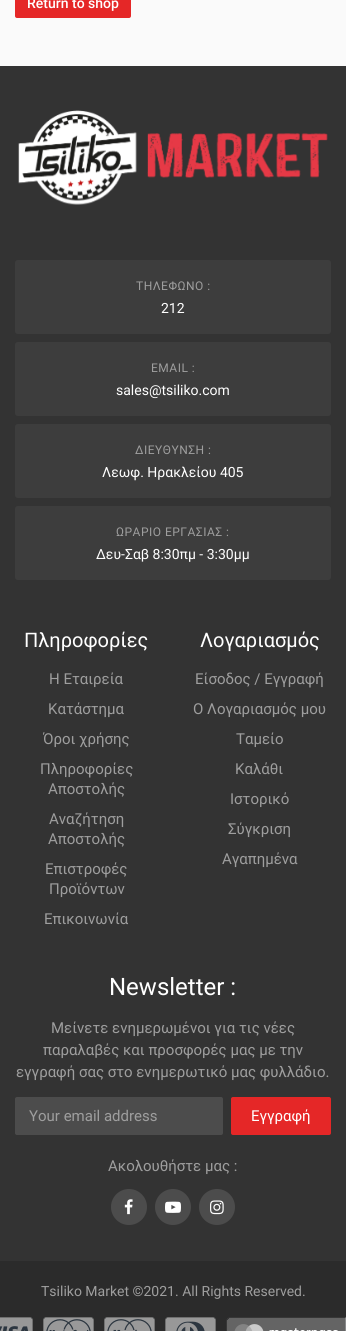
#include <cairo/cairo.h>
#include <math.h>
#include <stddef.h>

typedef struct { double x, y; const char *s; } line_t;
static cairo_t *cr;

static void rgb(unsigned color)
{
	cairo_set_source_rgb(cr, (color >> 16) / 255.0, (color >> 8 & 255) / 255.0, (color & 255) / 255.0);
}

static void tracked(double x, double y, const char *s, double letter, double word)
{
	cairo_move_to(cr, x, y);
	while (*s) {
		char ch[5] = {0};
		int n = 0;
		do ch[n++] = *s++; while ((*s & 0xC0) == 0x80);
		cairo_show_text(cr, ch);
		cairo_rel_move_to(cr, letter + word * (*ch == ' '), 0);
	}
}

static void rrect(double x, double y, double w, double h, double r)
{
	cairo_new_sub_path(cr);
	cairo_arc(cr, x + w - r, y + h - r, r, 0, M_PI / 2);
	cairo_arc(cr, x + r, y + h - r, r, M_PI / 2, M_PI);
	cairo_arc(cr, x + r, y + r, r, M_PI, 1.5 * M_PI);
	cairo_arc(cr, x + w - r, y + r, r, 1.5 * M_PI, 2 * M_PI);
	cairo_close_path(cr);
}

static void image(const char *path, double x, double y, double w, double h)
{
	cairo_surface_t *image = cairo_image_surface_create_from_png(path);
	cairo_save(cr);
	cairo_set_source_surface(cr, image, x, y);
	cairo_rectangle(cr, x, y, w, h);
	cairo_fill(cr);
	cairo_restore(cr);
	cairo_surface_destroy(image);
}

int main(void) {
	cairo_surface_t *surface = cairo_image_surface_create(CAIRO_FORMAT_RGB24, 346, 1331);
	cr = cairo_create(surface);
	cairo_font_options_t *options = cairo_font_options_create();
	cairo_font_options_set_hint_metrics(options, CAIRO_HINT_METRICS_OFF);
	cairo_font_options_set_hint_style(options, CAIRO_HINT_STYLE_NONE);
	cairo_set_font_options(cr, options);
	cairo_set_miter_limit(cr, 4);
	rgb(0xfafafa);
	cairo_paint(cr);
	rgb(0xe52727);
	rrect(15, -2, 116, 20, 2);
	cairo_fill(cr);
	rgb(0x333333);
	cairo_rectangle(cr, 0, 66, 346, 1195);
	cairo_fill(cr);
	image("img/1.png", 18, 110, 310, 95);
	rgb(0x3d3d3d);
	rrect(15, 260, 316, 74, 3);
	cairo_fill(cr);
	rrect(15, 342, 316, 74, 3);
	cairo_fill(cr);
	rrect(15, 424, 316, 74, 3);
	cairo_fill(cr);
	rrect(15, 506, 316, 74, 3);
	cairo_fill(cr);
	rgb(0x4c4c4c);
	rrect(16, 1098, 206, 36, 1);
	cairo_fill_preserve(cr);
	cairo_stroke(cr);
	rgb(0xe52727);
	rrect(231, 1097, 100, 38, 2);
	cairo_fill(cr);
	rgb(0x4c4c4c);
	cairo_arc(cr, 129, 1207, 18, 0, 2 * M_PI);
	cairo_fill(cr);
	image("img/2.png", 124, 1199, 9, 16);
	cairo_arc(cr, 173, 1207, 18, 0, 2 * M_PI);
	cairo_fill(cr);
	image("img/3.png", 165, 1201, 16, 12);
	cairo_arc(cr, 217, 1207, 18, 0, 2 * M_PI);
	cairo_fill(cr);
	image("img/4.png", 210, 1200, 14, 15);
	rgb(0x2b2b2b);
	cairo_rectangle(cr, 0, 1261, 346, 70);
	cairo_fill(cr);
	image("img/5.png", 0, 1317, 346, 14);
	cairo_select_font_face(cr, "Roboto Medium", CAIRO_FONT_SLANT_NORMAL, CAIRO_FONT_WEIGHT_NORMAL);
	cairo_set_font_size(cr, 14);
	rgb(0xffffff);
	cairo_move_to(cr, 27, 8);
	cairo_show_text(cr, "Return to shop");
	cairo_select_font_face(cr, "Roboto", CAIRO_FONT_SLANT_NORMAL, CAIRO_FONT_WEIGHT_NORMAL);
	cairo_set_font_size(cr, 12);
	rgb(0x9e9e9e);
	tracked(136, 290, "ΤΗΛΕΦΩΝΟ :", 0.5, 0);
	cairo_set_font_size(cr, 14);
	rgb(0xffffff);
	cairo_move_to(cr, 161, 313);
	cairo_show_text(cr, "212");
	cairo_set_font_size(cr, 12);
	rgb(0x9e9e9e);
	tracked(151, 372, "EMAIL :", 0.5, 0);
	cairo_set_font_size(cr, 14);
	rgb(0xffffff);
	cairo_move_to(cr, 116, 395);
	cairo_show_text(cr, "sales@tsiliko.com");
	cairo_set_font_size(cr, 12);
	rgb(0x9e9e9e);
	tracked(135, 454, "ΔΙΕΥΘΥΝΣΗ :", 0.5, 0);
	cairo_set_font_size(cr, 14);
	rgb(0xffffff);
	cairo_move_to(cr, 102, 477);
	cairo_show_text(cr, "Λεωφ. Ηρακλείου 405");
	cairo_set_font_size(cr, 12);
	rgb(0x9e9e9e);
	tracked(116, 536, "ΩΡΑΡΙΟ ΕΡΓΑΣΙΑΣ :", 0.5, 0);
	cairo_set_font_size(cr, 14);
	rgb(0xffffff);
	cairo_move_to(cr, 96, 559);
	cairo_show_text(cr, "Δευ-Σαβ 8:30πμ - 3:30μμ");
	cairo_set_font_size(cr, 20);
	cairo_move_to(cr, 24, 647);
	cairo_show_text(cr, "Πληροφορίες");
	cairo_set_font_size(cr, 15);
	rgb(0x9e9e9e);
	{
		static const line_t items[] = {
			{49, 684, "Η Εταιρεία"},
			{48, 714, "Κατάστημα"},
			{43, 744, "Όροι χρήσης"},
			{40, 774, "Πληροφορίες"},
			{48, 794, "Αποστολής"},
			{49, 824, "Αναζήτηση"},
			{48, 844, "Αποστολής"},
			{45, 874, "Επιστροφές"},
			{49, 894, "Προϊόντων"},
			{44, 924, "Επικοινωνία"},
		};
		for (size_t i = 0; i < sizeof items / sizeof *items; i++) {
			cairo_move_to(cr, items[i].x, items[i].y);
			cairo_show_text(cr, items[i].s);
		}
	}
	cairo_set_font_size(cr, 20);
	rgb(0xffffff);
	cairo_move_to(cr, 200, 647);
	cairo_show_text(cr, "Λογαριασμός");
	cairo_set_font_size(cr, 15);
	rgb(0x9e9e9e);
	{
		static const line_t items[] = {
			{195, 684, "Είσοδος / Εγγραφή"},
			{193, 714, "Ο Λογαριασμός μου"},
			{236, 744, "Ταμείο"},
			{235, 774, "Καλάθι"},
			{230, 804, "Ιστορικό"},
			{228, 834, "Σύγκριση"},
			{222, 864, "Αγαπημένα"},
		};
		for (size_t i = 0; i < sizeof items / sizeof *items; i++) {
			cairo_move_to(cr, items[i].x, items[i].y);
			cairo_show_text(cr, items[i].s);
		}
	}
	cairo_set_font_size(cr, 24);
	rgb(0xffffff);
	cairo_move_to(cr, 109, 995);
	cairo_show_text(cr, "Newsletter :");
	cairo_set_font_size(cr, 15);
	rgb(0x9e9e9e);
	{
		static const line_t items[] = {
			{51, 1033, "Μείνετε ενημερωμένοι για τις νέες"},
			{43, 1055, "παραλαβές και προσφορές μας με την"},
			{16, 1077, "εγγραφή σας στο ενημερωτικό μας φυλλάδιο."},
			{29, 1121, "Your email address"},
		};
		for (size_t i = 0; i < sizeof items / sizeof *items; i++) {
			cairo_move_to(cr, items[i].x, items[i].y);
			cairo_show_text(cr, items[i].s);
		}
	}
	rgb(0xffffff);
	cairo_move_to(cr, 251, 1121);
	cairo_show_text(cr, "Εγγραφή");
	rgb(0x9e9e9e);
	cairo_move_to(cr, 108, 1171);
	cairo_show_text(cr, "Ακολουθήστε μας :");
	cairo_set_font_size(cr, 14);
	cairo_move_to(cr, 41, 1296);
	cairo_show_text(cr, "Tsiliko Market ©2021. All Rights Reserved.");
	cairo_surface_write_to_png(surface, "page.png");
	cairo_font_options_destroy(options);
	cairo_destroy(cr);
	cairo_surface_destroy(surface);
	return 0;
}
